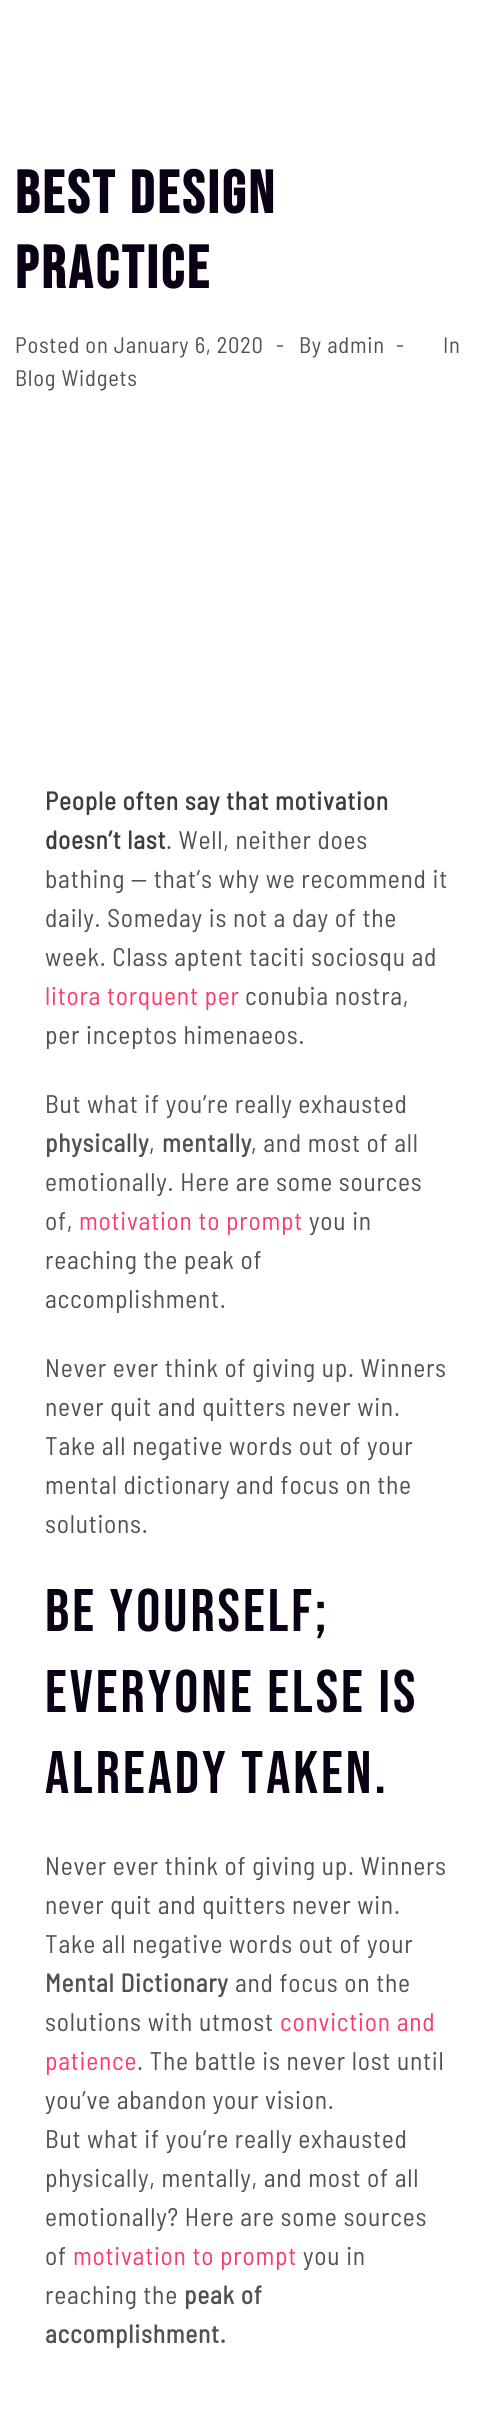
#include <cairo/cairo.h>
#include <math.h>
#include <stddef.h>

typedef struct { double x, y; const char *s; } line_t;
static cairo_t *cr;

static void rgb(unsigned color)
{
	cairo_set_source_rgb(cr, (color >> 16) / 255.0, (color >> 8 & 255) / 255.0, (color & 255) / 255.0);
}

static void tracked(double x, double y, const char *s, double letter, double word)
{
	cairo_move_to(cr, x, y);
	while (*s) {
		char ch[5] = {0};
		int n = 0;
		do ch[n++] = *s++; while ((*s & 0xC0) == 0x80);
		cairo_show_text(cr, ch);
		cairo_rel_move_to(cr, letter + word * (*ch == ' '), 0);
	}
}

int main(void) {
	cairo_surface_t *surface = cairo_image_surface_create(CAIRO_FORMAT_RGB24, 493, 2431);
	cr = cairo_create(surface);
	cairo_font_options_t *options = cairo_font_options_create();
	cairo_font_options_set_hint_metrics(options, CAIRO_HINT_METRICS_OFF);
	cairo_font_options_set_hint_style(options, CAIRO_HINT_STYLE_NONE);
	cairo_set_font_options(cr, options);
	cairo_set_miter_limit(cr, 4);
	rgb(0xffffff);
	cairo_paint(cr);
	cairo_select_font_face(cr, "Bebas Neue", CAIRO_FONT_SLANT_NORMAL, CAIRO_FONT_WEIGHT_BOLD);
	cairo_set_font_size(cr, 60);
	rgb(0x0a0114);
	tracked(15, 213, "Best Design", 3, 0);
	tracked(15, 288, "Practice", 3, 0);
	cairo_select_font_face(cr, "Barlow Semi Condensed", CAIRO_FONT_SLANT_NORMAL, CAIRO_FONT_WEIGHT_NORMAL);
	cairo_set_font_size(cr, 22.5);
	rgb(0x515151);
	{
		static const line_t items[] = {
			{15, 353, "Posted on January 6, 2020"},
			{276, 353, "-"},
			{299, 353, "By admin"},
			{396, 353, "-"},
			{443, 353, "In"},
			{15, 386, "Blog Widgets"},
		};
		for (size_t i = 0; i < sizeof items / sizeof *items; i++) {
			tracked(items[i].x, items[i].y, items[i].s, 0.75, 0);
		}
	}
	cairo_select_font_face(cr, "Barlow Semi Condensed", CAIRO_FONT_SLANT_NORMAL, CAIRO_FONT_WEIGHT_BOLD);
	cairo_set_font_size(cr, 25.5);
	rgb(0x3c3c3c);
	tracked(45, 810, "People often say that motivation", 0.75, 0);
	tracked(45, 849, "doesn’t last", 0.75, 0);
	cairo_select_font_face(cr, "Barlow Semi Condensed", CAIRO_FONT_SLANT_NORMAL, CAIRO_FONT_WEIGHT_NORMAL);
	rgb(0x515151);
	{
		static const line_t items[] = {
			{166, 849, ". Well, neither does"},
			{45, 888, "bathing — that’s why we recommend it"},
			{45, 927, "daily. Someday is not a day of the"},
			{45, 966, "week. Class aptent taciti sociosqu ad"},
		};
		for (size_t i = 0; i < sizeof items / sizeof *items; i++) {
			tracked(items[i].x, items[i].y, items[i].s, 0.75, 0);
		}
	}
	rgb(0xf93d6a);
	tracked(45, 1005, "litora torquent per", 0.75, 0);
	rgb(0x515151);
	{
		static const line_t items[] = {
			{245, 1005, "conubia nostra,"},
			{45, 1044, "per inceptos himenaeos."},
			{45, 1113, "But what if you’re really exhausted"},
		};
		for (size_t i = 0; i < sizeof items / sizeof *items; i++) {
			tracked(items[i].x, items[i].y, items[i].s, 0.75, 0);
		}
	}
	cairo_select_font_face(cr, "Barlow Semi Condensed", CAIRO_FONT_SLANT_NORMAL, CAIRO_FONT_WEIGHT_BOLD);
	tracked(45, 1152, "physically", 0.75, 0);
	cairo_select_font_face(cr, "Barlow Semi Condensed", CAIRO_FONT_SLANT_NORMAL, CAIRO_FONT_WEIGHT_NORMAL);
	tracked(149, 1152, ",", 0.75, 0);
	cairo_select_font_face(cr, "Barlow Semi Condensed", CAIRO_FONT_SLANT_NORMAL, CAIRO_FONT_WEIGHT_BOLD);
	tracked(162, 1152, "mentally", 0.75, 0);
	cairo_select_font_face(cr, "Barlow Semi Condensed", CAIRO_FONT_SLANT_NORMAL, CAIRO_FONT_WEIGHT_NORMAL);
	{
		static const line_t items[] = {
			{251, 1152, ", and most of all"},
			{45, 1191, "emotionally. Here are some sources"},
			{45, 1230, "of,"},
		};
		for (size_t i = 0; i < sizeof items / sizeof *items; i++) {
			tracked(items[i].x, items[i].y, items[i].s, 0.75, 0);
		}
	}
	rgb(0xf93d6a);
	tracked(79, 1230, "motivation to prompt", 0.75, 0);
	rgb(0x515151);
	{
		static const line_t items[] = {
			{309, 1230, "you in"},
			{45, 1269, "reaching the peak of"},
			{45, 1308, "accomplishment."},
			{45, 1377, "Never ever think of giving up. Winners"},
			{45, 1416, "never quit and quitters never win."},
			{45, 1455, "Take all negative words out of your"},
			{45, 1494, "mental dictionary and focus on the"},
			{45, 1533, "solutions."},
		};
		for (size_t i = 0; i < sizeof items / sizeof *items; i++) {
			tracked(items[i].x, items[i].y, items[i].s, 0.75, 0);
		}
	}
	cairo_select_font_face(cr, "Bebas Neue", CAIRO_FONT_SLANT_NORMAL, CAIRO_FONT_WEIGHT_NORMAL);
	cairo_set_font_size(cr, 60);
	rgb(0x0a0114);
	{
		static const line_t items[] = {
			{45, 1631, "Be yourself;"},
			{45, 1712, "everyone else is"},
			{45, 1793, "already taken."},
		};
		for (size_t i = 0; i < sizeof items / sizeof *items; i++) {
			tracked(items[i].x, items[i].y, items[i].s, 3, 0);
		}
	}
	cairo_select_font_face(cr, "Barlow Semi Condensed", CAIRO_FONT_SLANT_NORMAL, CAIRO_FONT_WEIGHT_NORMAL);
	cairo_set_font_size(cr, 25.5);
	rgb(0x515151);
	{
		static const line_t items[] = {
			{45, 1875, "Never ever think of giving up. Winners"},
			{45, 1914, "never quit and quitters never win."},
			{45, 1953, "Take all negative words out of your"},
		};
		for (size_t i = 0; i < sizeof items / sizeof *items; i++) {
			tracked(items[i].x, items[i].y, items[i].s, 0.75, 0);
		}
	}
	cairo_select_font_face(cr, "Barlow Semi Condensed", CAIRO_FONT_SLANT_NORMAL, CAIRO_FONT_WEIGHT_BOLD);
	tracked(45, 1992, "Mental Dictionary", 0.75, 0);
	cairo_select_font_face(cr, "Barlow Semi Condensed", CAIRO_FONT_SLANT_NORMAL, CAIRO_FONT_WEIGHT_NORMAL);
	tracked(235, 1992, "and focus on the", 0.75, 0);
	tracked(45, 2031, "solutions with utmost", 0.75, 0);
	rgb(0xf93d6a);
	tracked(280, 2031, "conviction and", 0.75, 0);
	tracked(45, 2070, "patience", 0.75, 0);
	rgb(0x515151);
	{
		static const line_t items[] = {
			{137, 2070, ". The battle is never lost until"},
			{45, 2109, "you’ve abandon your vision."},
			{45, 2148, "But what if you’re really exhausted"},
			{45, 2187, "physically, mentally, and most of all"},
			{45, 2226, "emotionally? Here are some sources"},
			{45, 2265, "of"},
		};
		for (size_t i = 0; i < sizeof items / sizeof *items; i++) {
			tracked(items[i].x, items[i].y, items[i].s, 0.75, 0);
		}
	}
	rgb(0xf93d6a);
	tracked(73, 2265, "motivation to prompt", 0.75, 0);
	rgb(0x515151);
	tracked(303, 2265, "you in", 0.75, 0);
	tracked(45, 2304, "reaching the", 0.75, 0);
	cairo_select_font_face(cr, "Barlow Semi Condensed", CAIRO_FONT_SLANT_NORMAL, CAIRO_FONT_WEIGHT_BOLD);
	tracked(184, 2304, "peak of", 0.75, 0);
	tracked(45, 2343, "accomplishment.", 0.75, 0);
	cairo_surface_write_to_png(surface, "page.png");
	cairo_font_options_destroy(options);
	cairo_destroy(cr);
	cairo_surface_destroy(surface);
	return 0;
}
